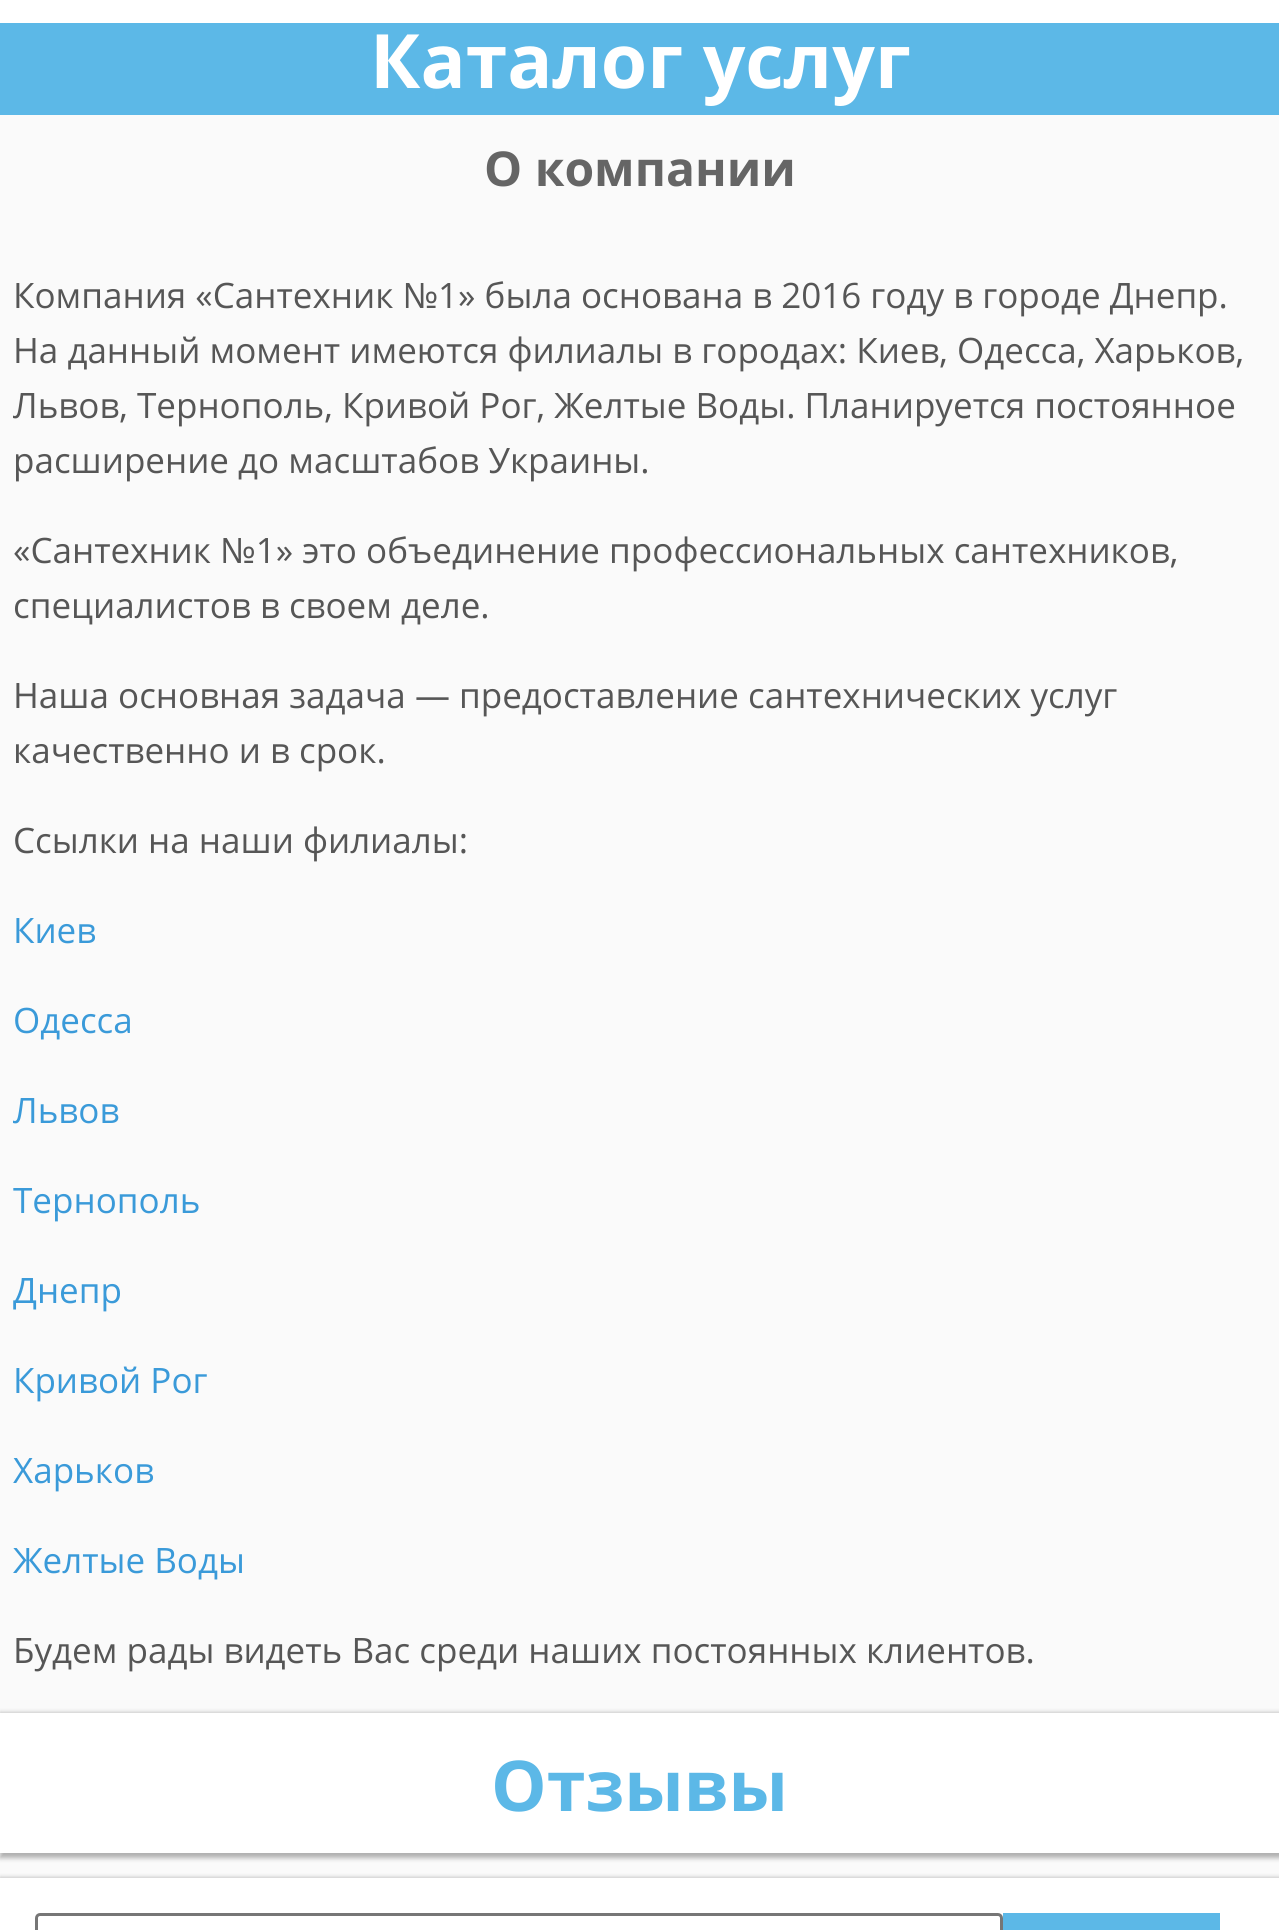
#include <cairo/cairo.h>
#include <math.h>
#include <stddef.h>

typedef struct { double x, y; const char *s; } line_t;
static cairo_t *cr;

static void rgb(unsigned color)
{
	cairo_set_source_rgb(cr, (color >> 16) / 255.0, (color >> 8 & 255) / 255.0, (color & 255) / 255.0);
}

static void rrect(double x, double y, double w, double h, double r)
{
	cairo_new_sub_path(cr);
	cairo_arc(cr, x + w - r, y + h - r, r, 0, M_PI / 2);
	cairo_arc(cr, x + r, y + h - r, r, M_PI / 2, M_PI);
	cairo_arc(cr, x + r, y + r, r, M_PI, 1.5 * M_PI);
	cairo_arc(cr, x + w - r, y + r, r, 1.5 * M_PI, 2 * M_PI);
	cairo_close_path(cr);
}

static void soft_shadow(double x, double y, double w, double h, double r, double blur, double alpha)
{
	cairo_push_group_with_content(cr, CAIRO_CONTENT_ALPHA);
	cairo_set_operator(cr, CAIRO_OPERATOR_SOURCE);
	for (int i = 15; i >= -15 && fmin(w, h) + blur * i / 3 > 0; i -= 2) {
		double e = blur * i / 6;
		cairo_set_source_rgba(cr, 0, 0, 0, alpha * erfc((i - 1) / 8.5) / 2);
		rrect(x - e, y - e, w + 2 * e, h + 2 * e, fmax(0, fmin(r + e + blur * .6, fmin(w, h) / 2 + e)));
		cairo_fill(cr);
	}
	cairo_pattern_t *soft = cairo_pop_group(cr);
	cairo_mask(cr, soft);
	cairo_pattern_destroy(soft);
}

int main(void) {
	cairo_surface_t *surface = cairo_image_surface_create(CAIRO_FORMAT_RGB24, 1279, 1930);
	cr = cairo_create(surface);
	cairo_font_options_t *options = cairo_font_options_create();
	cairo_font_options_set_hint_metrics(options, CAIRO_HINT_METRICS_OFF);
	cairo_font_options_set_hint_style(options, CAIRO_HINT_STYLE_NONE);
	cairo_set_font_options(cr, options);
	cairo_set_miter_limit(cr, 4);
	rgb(0xfafafa);
	cairo_paint(cr);
	rgb(0xffffff);
	cairo_rectangle(cr, 0, 0, 1279, 23);
	cairo_fill(cr);
	rgb(0x5cb8e7);
	cairo_rectangle(cr, 0, 23, 1279, 92);
	cairo_fill(cr);
	rgb(0x000000);
	soft_shadow(0, 1713, 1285, 145, 0, 2.5, 0.3);
	rgb(0xffffff);
	cairo_rectangle(cr, 0, 1713, 1279, 140);
	cairo_fill(cr);
	rgb(0x000000);
	soft_shadow(0, 1878, 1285, 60, 0, 2.5, 0.3);
	rgb(0xffffff);
	cairo_rectangle(cr, 0, 1878, 1279, 52);
	cairo_fill(cr);
	rrect(36.5, 1914.5, 965, 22, 3.5);
	rgb(0x767676);
	cairo_set_line_width(cr, 3);
	cairo_stroke(cr);
	rgb(0x5cb8e7);
	cairo_rectangle(cr, 1003, 1913, 217, 17);
	cairo_fill(cr);
	cairo_select_font_face(cr, "Open Sans", CAIRO_FONT_SLANT_NORMAL, CAIRO_FONT_WEIGHT_BOLD);
	cairo_set_font_size(cr, 75);
	rgb(0xffffff);
	cairo_move_to(cr, 370, 88);
	cairo_show_text(cr, "Каталог услуг");
	cairo_set_font_size(cr, 48);
	rgb(0x656565);
	cairo_move_to(cr, 484, 186);
	cairo_show_text(cr, "О компании");
	cairo_select_font_face(cr, "Open Sans", CAIRO_FONT_SLANT_NORMAL, CAIRO_FONT_WEIGHT_NORMAL);
	cairo_set_font_size(cr, 35);
	rgb(0x565656);
	{
		static const line_t items[] = {
			{13, 308, "Компания «Сантехник №1» была основана в 2016 году в городе Днепр."},
			{13, 363, "На данный момент имеются филиалы в городах: Киев, Одесса, Харьков,"},
			{13, 418, "Львов, Тернополь, Кривой Рог, Желтые Воды. Планируется постоянное"},
			{13, 473, "расширение до масштабов Украины."},
			{13, 563, "«Сантехник №1» это объединение профессиональных сантехников,"},
			{13, 618, "специалистов в своем деле."},
			{13, 708, "Наша основная задача — предоставление сантехнических услуг"},
			{13, 763, "качественно и в срок."},
			{13, 853, "Ссылки на наши филиалы:"},
		};
		for (size_t i = 0; i < sizeof items / sizeof *items; i++) {
			cairo_move_to(cr, items[i].x, items[i].y);
			cairo_show_text(cr, items[i].s);
		}
	}
	rgb(0x3a9ad9);
	{
		static const line_t items[] = {
			{13, 943, "Киев"},
			{13, 1033, "Одесса"},
			{13, 1123, "Львов"},
			{13, 1213, "Тернополь"},
			{13, 1303, "Днепр"},
			{13, 1393, "Кривой Рог"},
			{13, 1483, "Харьков"},
			{13, 1573, "Желтые Воды"},
		};
		for (size_t i = 0; i < sizeof items / sizeof *items; i++) {
			cairo_move_to(cr, items[i].x, items[i].y);
			cairo_show_text(cr, items[i].s);
		}
	}
	rgb(0x565656);
	cairo_move_to(cr, 13, 1663);
	cairo_show_text(cr, "Будем рады видеть Вас среди наших постоянных клиентов.");
	cairo_select_font_face(cr, "Open Sans", CAIRO_FONT_SLANT_NORMAL, CAIRO_FONT_WEIGHT_BOLD);
	cairo_set_font_size(cr, 70);
	rgb(0x5cb8e7);
	cairo_move_to(cr, 491, 1811);
	cairo_show_text(cr, "Отзывы");
	cairo_surface_write_to_png(surface, "page.png");
	cairo_font_options_destroy(options);
	cairo_destroy(cr);
	cairo_surface_destroy(surface);
	return 0;
}
